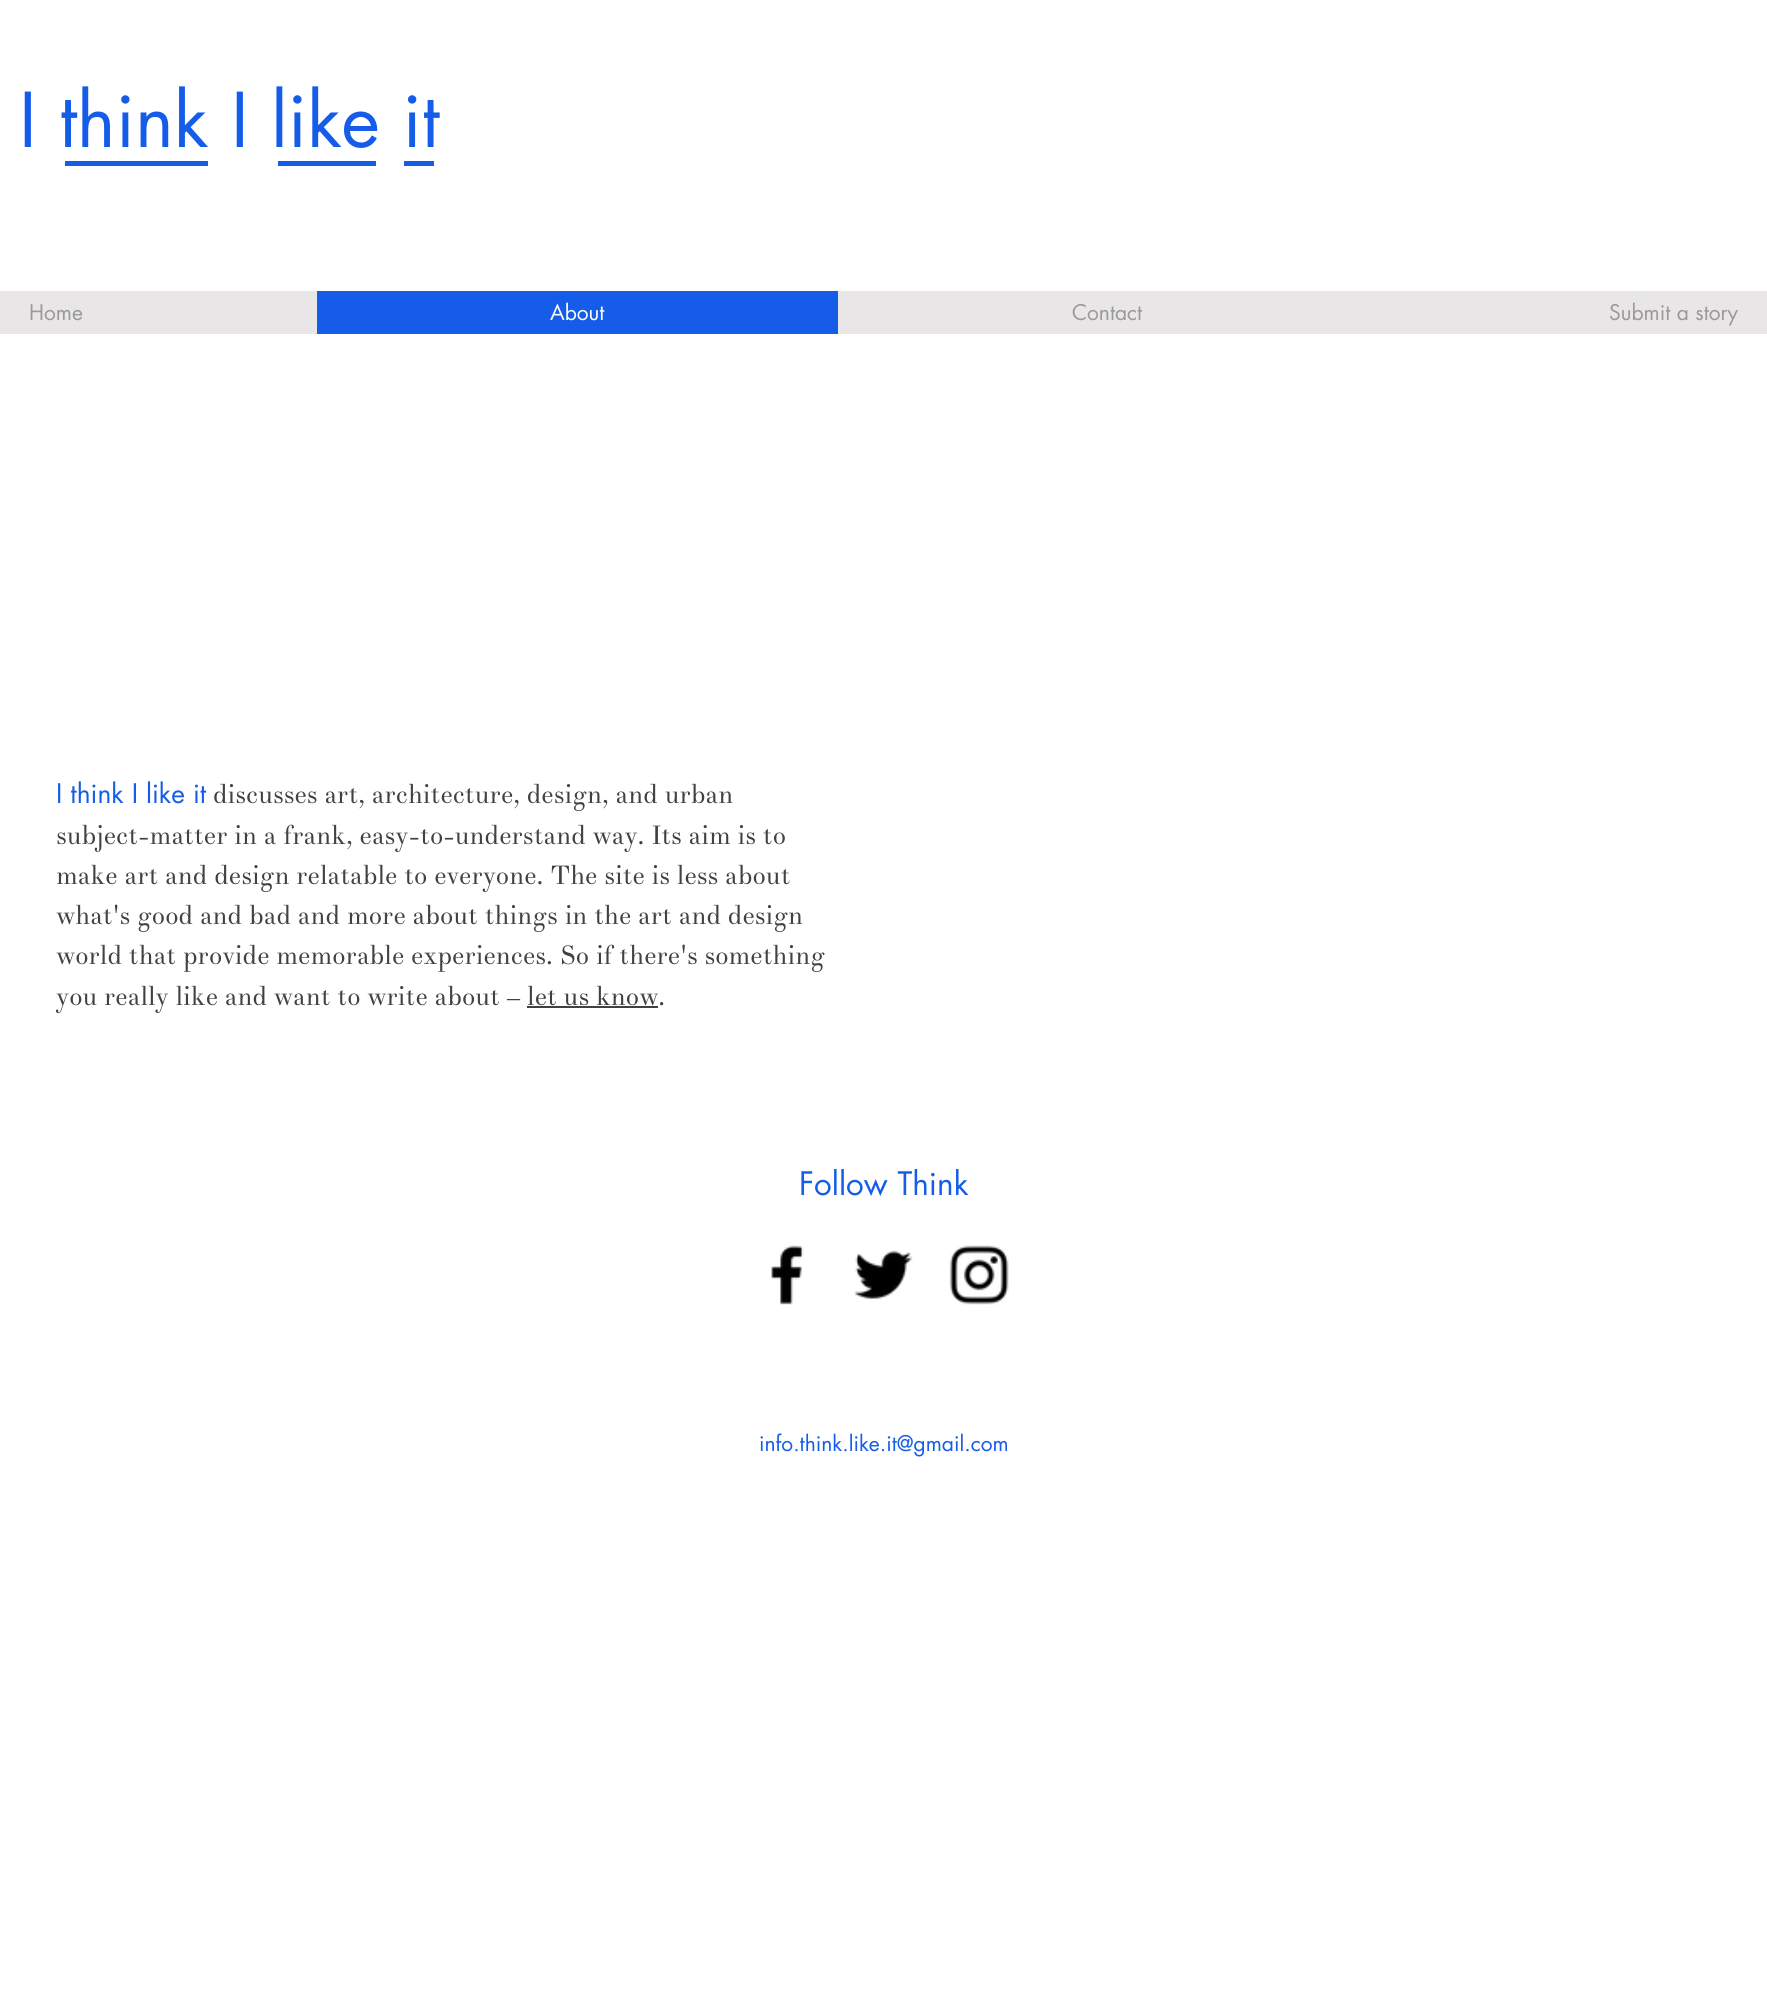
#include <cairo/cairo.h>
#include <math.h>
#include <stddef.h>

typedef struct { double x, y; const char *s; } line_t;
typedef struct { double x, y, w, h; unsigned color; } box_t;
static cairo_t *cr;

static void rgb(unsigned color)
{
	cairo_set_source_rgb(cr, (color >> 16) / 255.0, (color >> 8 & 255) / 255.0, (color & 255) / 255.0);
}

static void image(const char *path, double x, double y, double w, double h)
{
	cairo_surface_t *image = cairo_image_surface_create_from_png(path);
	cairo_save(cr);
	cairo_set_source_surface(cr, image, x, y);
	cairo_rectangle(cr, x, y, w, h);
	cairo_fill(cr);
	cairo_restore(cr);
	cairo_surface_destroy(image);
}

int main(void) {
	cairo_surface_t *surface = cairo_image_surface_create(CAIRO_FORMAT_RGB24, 1767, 2015);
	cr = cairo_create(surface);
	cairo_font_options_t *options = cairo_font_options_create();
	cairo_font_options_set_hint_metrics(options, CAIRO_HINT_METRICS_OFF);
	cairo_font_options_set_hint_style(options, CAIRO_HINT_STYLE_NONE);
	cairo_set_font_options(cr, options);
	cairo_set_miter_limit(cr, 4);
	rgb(0xffffff);
	cairo_paint(cr);
	{
		static const box_t items[] = {
			{65, 161, 143, 5, 0x155de9},
			{278, 161, 98, 5, 0x155de9},
			{404, 161, 30, 5, 0x155de9},
			{0, 291, 317, 43, 0xe8e6e6},
			{317, 291, 521, 43, 0x155de9},
			{838, 291, 929, 43, 0xe8e6e6},
			{527, 1006, 131, 2, 0x414141},
		};
		for (size_t i = 0; i < sizeof items / sizeof *items; i++) {
			rgb(items[i].color);
			cairo_rectangle(cr, items[i].x, items[i].y, items[i].w, items[i].h);
			cairo_fill(cr);
		}
	}
	image("img/1.png", 771, 1245, 33, 60);
	image("img/2.png", 854, 1250, 59, 49);
	image("img/3.png", 949, 1245, 60, 60);
	cairo_select_font_face(cr, "futura", CAIRO_FONT_SLANT_NORMAL, CAIRO_FONT_WEIGHT_NORMAL);
	cairo_set_font_size(cr, 73.5);
	rgb(0x155de9);
	cairo_move_to(cr, 19, 147);
	cairo_show_text(cr, "I think I like it");
	cairo_set_font_size(cr, 21);
	rgb(0x999997);
	cairo_move_to(cr, 29, 320);
	cairo_show_text(cr, "Home");
	rgb(0xffffff);
	cairo_move_to(cr, 550, 320);
	cairo_show_text(cr, "About");
	rgb(0x999997);
	cairo_move_to(cr, 1072, 320);
	cairo_show_text(cr, "Contact");
	cairo_move_to(cr, 1609, 320);
	cairo_show_text(cr, "Submit a story");
	cairo_set_font_size(cr, 26.25);
	rgb(0x155de9);
	cairo_move_to(cr, 56, 803);
	cairo_show_text(cr, "I think I like it");
	cairo_select_font_face(cr, "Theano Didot", CAIRO_FONT_SLANT_NORMAL, CAIRO_FONT_WEIGHT_NORMAL);
	rgb(0x414141);
	{
		static const line_t items[] = {
			{213, 803, "discusses art, architecture, design, and urban"},
			{56, 844, "subject-matter in a frank, easy-to-understand way. Its aim is to"},
			{56, 884, "make art and design relatable to everyone. The site is less about"},
			{56, 924, "what's good and bad and more about things in the art and design"},
			{56, 964, "world that provide memorable experiences. So if there's something"},
			{56, 1005, "you really like and want to write about – let us know."},
		};
		for (size_t i = 0; i < sizeof items / sizeof *items; i++) {
			cairo_move_to(cr, items[i].x, items[i].y);
			cairo_show_text(cr, items[i].s);
		}
	}
	cairo_select_font_face(cr, "futura", CAIRO_FONT_SLANT_NORMAL, CAIRO_FONT_WEIGHT_NORMAL);
	cairo_set_font_size(cr, 31.5);
	rgb(0x155de9);
	cairo_move_to(cr, 799, 1195);
	cairo_show_text(cr, "Follow Think");
	cairo_set_font_size(cr, 21);
	cairo_move_to(cr, 759, 1451);
	cairo_show_text(cr, "info.think.like.it@gmail.com");
	cairo_surface_write_to_png(surface, "page.png");
	cairo_font_options_destroy(options);
	cairo_destroy(cr);
	cairo_surface_destroy(surface);
	return 0;
}
